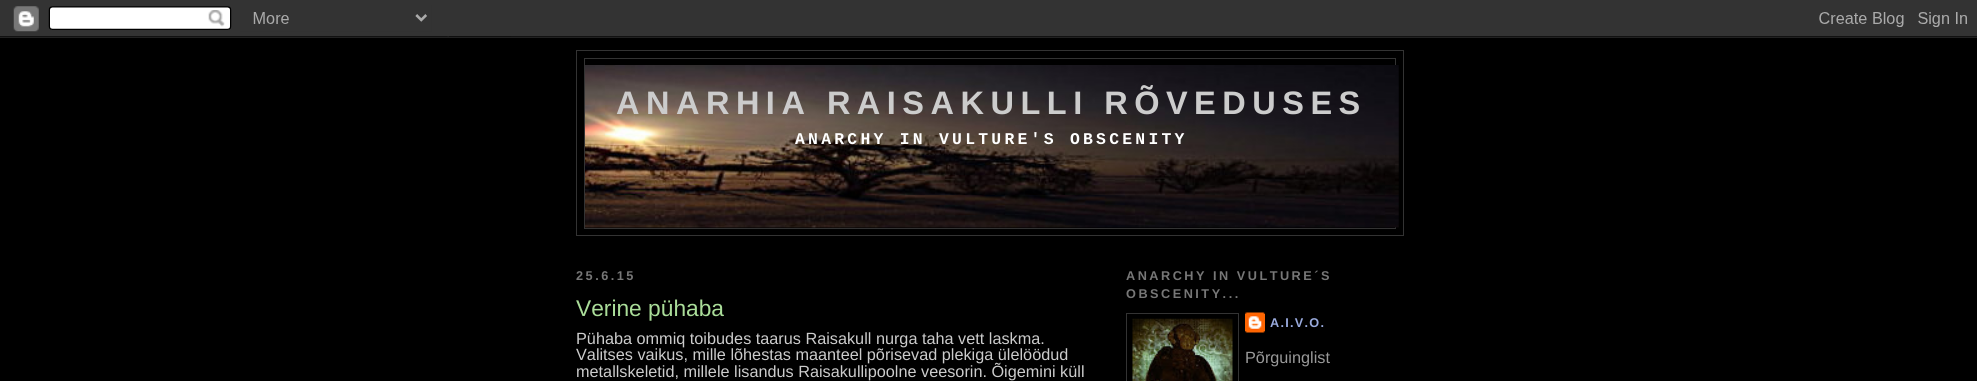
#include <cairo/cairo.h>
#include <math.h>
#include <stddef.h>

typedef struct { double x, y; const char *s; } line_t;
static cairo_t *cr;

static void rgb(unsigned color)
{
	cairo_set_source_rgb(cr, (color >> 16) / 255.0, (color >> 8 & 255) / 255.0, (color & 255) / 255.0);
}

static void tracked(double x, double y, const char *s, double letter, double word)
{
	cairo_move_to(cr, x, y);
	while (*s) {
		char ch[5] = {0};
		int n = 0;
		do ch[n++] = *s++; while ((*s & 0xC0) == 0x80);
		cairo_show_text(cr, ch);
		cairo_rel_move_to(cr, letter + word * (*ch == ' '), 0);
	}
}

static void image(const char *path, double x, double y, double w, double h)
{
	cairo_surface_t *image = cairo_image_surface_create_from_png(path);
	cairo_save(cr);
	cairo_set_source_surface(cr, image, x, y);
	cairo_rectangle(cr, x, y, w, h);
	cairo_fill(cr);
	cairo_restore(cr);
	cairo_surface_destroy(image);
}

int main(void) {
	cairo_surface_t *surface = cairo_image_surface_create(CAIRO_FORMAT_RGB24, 1977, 381);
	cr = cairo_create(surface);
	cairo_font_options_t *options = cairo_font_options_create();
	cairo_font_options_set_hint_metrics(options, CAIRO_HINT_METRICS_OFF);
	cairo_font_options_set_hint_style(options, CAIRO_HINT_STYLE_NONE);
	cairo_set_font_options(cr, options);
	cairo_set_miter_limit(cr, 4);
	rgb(0x000000);
	cairo_paint(cr);
	image("img/1.png", 0, 0, 1977, 38);
	cairo_rectangle(cr, 576.5, 50.5, 827, 185);
	rgb(0x333333);
	cairo_set_line_width(cr, 1);
	cairo_stroke(cr);
	cairo_rectangle(cr, 584.5, 58.5, 811, 170);
	cairo_stroke(cr);
	image("img/2.png", 585, 65, 814, 163);
	cairo_rectangle(cr, 1126.5, 313.5, 112, 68);
	cairo_stroke(cr);
	image("img/3.png", 1132, 318, 101, 63);
	image("img/4.png", 1245, 312, 20, 21);
	cairo_select_font_face(cr, "Liberation Sans", CAIRO_FONT_SLANT_NORMAL, CAIRO_FONT_WEIGHT_BOLD);
	cairo_set_font_size(cr, 32.5);
	rgb(0xcccccc);
	tracked(616, 114, "ANARHIA RAISAKULLI RÕVEDUSES", 6.5, 0);
	cairo_select_font_face(cr, "Liberation Mono", CAIRO_FONT_SLANT_NORMAL, CAIRO_FONT_WEIGHT_BOLD);
	cairo_set_font_size(cr, 16.4);
	rgb(0xffffff);
	tracked(795, 144, "ANARCHY IN VULTURE'S OBSCENITY", 3.25, 0);
	cairo_select_font_face(cr, "Liberation Sans", CAIRO_FONT_SLANT_NORMAL, CAIRO_FONT_WEIGHT_BOLD);
	cairo_set_font_size(cr, 12.7);
	rgb(0x777777);
	tracked(576, 280, "25.6.15", 2.5, 0);
	cairo_select_font_face(cr, "Liberation Sans", CAIRO_FONT_SLANT_NORMAL, CAIRO_FONT_WEIGHT_NORMAL);
	cairo_set_font_size(cr, 22.75);
	rgb(0xaadd99);
	cairo_move_to(cr, 576, 316);
	cairo_show_text(cr, "Verine pühaba");
	cairo_set_font_size(cr, 16.25);
	rgb(0xcccccc);
	{
		static const line_t items[] = {
			{576, 344, "Pühaba ommiq toibudes taarus Raisakull nurga taha vett laskma."},
			{576, 360, "Valitses vaikus, mille lõhestas maanteel põrisevad plekiga ülelöödud"},
			{576, 377, "metallskeletid, millele lisandus Raisakullipoolne veesorin. Õigemini küll"},
		};
		for (size_t i = 0; i < sizeof items / sizeof *items; i++) {
			cairo_move_to(cr, items[i].x, items[i].y);
			cairo_show_text(cr, items[i].s);
		}
	}
	cairo_select_font_face(cr, "Liberation Sans", CAIRO_FONT_SLANT_NORMAL, CAIRO_FONT_WEIGHT_BOLD);
	cairo_set_font_size(cr, 12.7);
	rgb(0x777777);
	tracked(1126, 280, "ANARCHY IN VULTURE´S", 2.5, 0);
	tracked(1126, 298, "OBSCENITY...", 2.5, 0);
	rgb(0x99aadd);
	tracked(1270, 327, "A.I.V.O.", 1.25, 0);
	cairo_select_font_face(cr, "Liberation Sans", CAIRO_FONT_SLANT_NORMAL, CAIRO_FONT_WEIGHT_NORMAL);
	cairo_set_font_size(cr, 16.25);
	rgb(0x999999);
	cairo_move_to(cr, 1245, 363);
	cairo_show_text(cr, "Põrguinglist");
	cairo_surface_write_to_png(surface, "page.png");
	cairo_font_options_destroy(options);
	cairo_destroy(cr);
	cairo_surface_destroy(surface);
	return 0;
}
